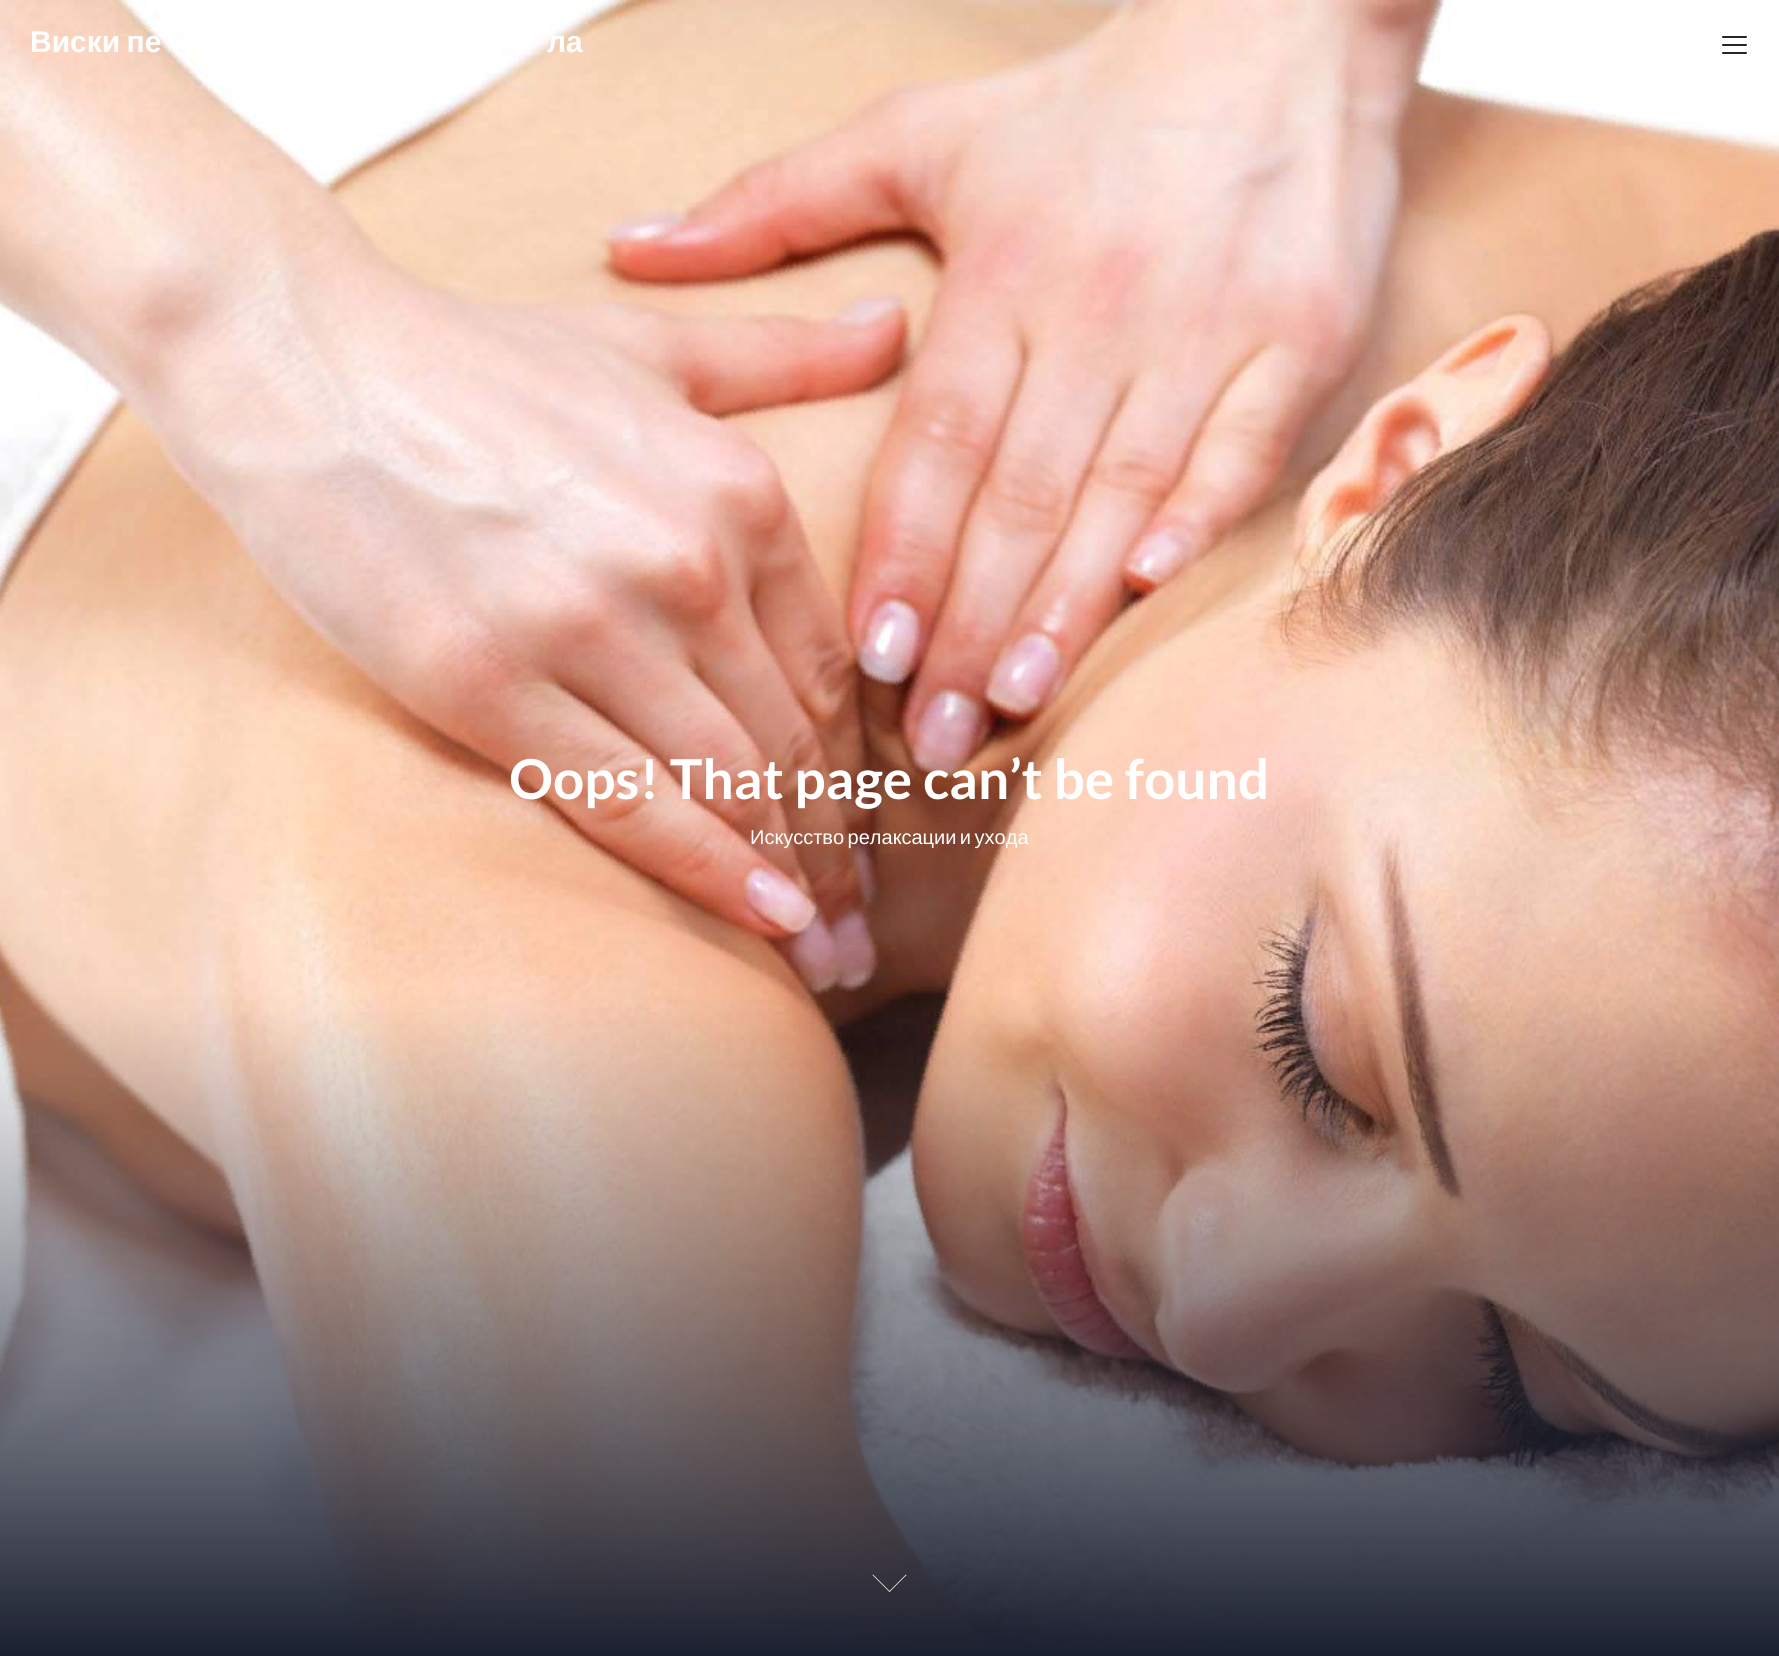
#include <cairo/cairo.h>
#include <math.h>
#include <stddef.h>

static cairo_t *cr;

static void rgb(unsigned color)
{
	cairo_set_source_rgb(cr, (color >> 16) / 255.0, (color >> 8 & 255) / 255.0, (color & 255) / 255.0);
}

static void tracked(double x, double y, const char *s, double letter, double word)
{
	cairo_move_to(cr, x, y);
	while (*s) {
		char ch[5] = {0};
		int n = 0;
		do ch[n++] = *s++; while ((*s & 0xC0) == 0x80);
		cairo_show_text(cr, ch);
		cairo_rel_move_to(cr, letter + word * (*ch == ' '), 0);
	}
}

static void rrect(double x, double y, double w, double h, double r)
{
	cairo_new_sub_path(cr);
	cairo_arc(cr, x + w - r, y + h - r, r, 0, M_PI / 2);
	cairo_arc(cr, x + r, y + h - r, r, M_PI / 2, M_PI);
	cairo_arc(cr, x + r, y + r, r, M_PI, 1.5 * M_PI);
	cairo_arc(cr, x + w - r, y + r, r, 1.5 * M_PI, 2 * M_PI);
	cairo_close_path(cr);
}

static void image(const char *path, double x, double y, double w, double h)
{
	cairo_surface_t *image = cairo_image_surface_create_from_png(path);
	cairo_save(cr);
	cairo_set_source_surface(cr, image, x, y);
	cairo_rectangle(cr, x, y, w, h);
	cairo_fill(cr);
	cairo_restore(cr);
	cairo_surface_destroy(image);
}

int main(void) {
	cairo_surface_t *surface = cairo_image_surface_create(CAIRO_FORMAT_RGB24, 1779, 1656);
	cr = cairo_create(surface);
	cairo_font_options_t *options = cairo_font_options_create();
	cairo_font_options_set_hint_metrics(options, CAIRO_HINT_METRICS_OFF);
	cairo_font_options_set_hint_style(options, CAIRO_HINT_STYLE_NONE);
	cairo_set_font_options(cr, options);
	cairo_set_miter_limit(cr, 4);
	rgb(0xffffff);
	cairo_paint(cr);
	image("img/1.png", 0, 0, 1779, 1656);
	rgb(0x252525);
	rrect(1722, 44, 25, 2, 1);
	cairo_fill(cr);
	rrect(1722, 36, 25, 2, 1);
	cairo_fill(cr);
	rrect(1722, 52, 25, 2, 1);
	cairo_fill(cr);
	rgb(0xffffff);
	cairo_new_path(cr);
	cairo_move_to(cr, 889, 1591.5);
	cairo_line_to(cr, 906, 1574.5);
	cairo_line_to(cr, 906.5, 1575);
	cairo_line_to(cr, 889.5, 1592);
	cairo_close_path(cr);
	cairo_fill(cr);
	cairo_new_path(cr);
	cairo_move_to(cr, 872.5, 1575);
	cairo_line_to(cr, 873, 1574.5);
	cairo_line_to(cr, 890, 1591.5);
	cairo_line_to(cr, 889.5, 1592);
	cairo_close_path(cr);
	cairo_fill(cr);
	cairo_select_font_face(cr, "Liberation Sans", CAIRO_FONT_SLANT_NORMAL, CAIRO_FONT_WEIGHT_BOLD);
	cairo_set_font_size(cr, 30);
	tracked(30, 52, "Виски пе", 0, -2);
	tracked(547, 52, "ла", 0, -2);
	cairo_select_font_face(cr, "Lato", CAIRO_FONT_SLANT_NORMAL, CAIRO_FONT_WEIGHT_BOLD);
	cairo_set_font_size(cr, 55);
	cairo_move_to(cr, 509, 799);
	cairo_show_text(cr, "Oops! That page can’t be found");
	cairo_select_font_face(cr, "Liberation Sans", CAIRO_FONT_SLANT_NORMAL, CAIRO_FONT_WEIGHT_NORMAL);
	cairo_set_font_size(cr, 20);
	tracked(750, 844, "Искусство релаксации и ухода", 0, -2);
	cairo_surface_write_to_png(surface, "page.png");
	cairo_font_options_destroy(options);
	cairo_destroy(cr);
	cairo_surface_destroy(surface);
	return 0;
}
